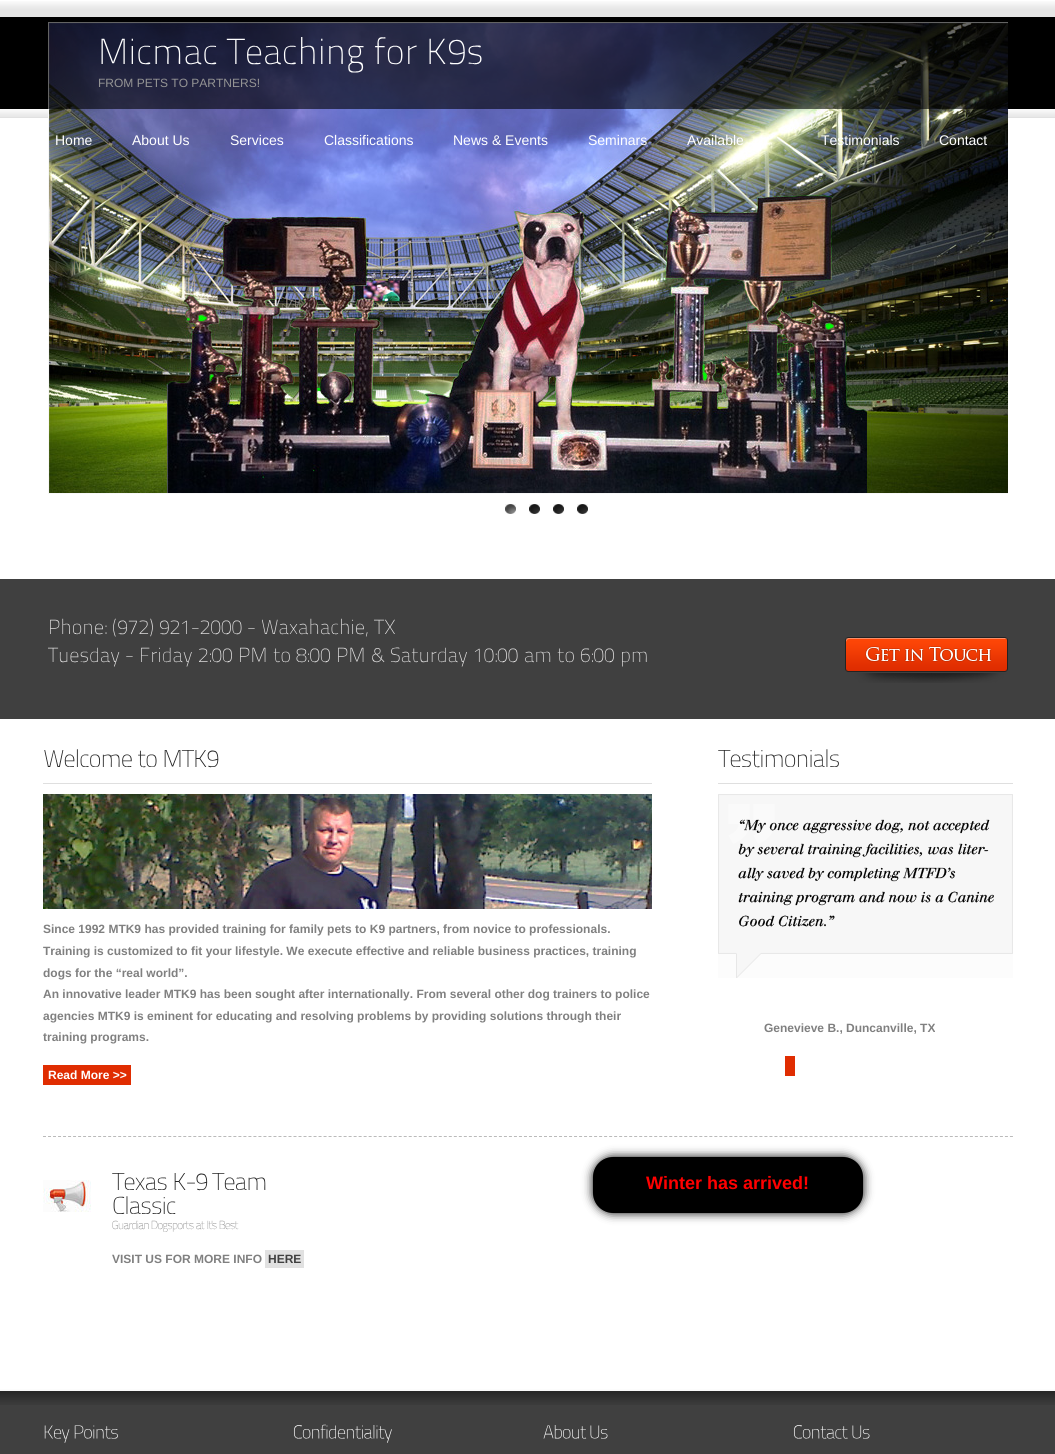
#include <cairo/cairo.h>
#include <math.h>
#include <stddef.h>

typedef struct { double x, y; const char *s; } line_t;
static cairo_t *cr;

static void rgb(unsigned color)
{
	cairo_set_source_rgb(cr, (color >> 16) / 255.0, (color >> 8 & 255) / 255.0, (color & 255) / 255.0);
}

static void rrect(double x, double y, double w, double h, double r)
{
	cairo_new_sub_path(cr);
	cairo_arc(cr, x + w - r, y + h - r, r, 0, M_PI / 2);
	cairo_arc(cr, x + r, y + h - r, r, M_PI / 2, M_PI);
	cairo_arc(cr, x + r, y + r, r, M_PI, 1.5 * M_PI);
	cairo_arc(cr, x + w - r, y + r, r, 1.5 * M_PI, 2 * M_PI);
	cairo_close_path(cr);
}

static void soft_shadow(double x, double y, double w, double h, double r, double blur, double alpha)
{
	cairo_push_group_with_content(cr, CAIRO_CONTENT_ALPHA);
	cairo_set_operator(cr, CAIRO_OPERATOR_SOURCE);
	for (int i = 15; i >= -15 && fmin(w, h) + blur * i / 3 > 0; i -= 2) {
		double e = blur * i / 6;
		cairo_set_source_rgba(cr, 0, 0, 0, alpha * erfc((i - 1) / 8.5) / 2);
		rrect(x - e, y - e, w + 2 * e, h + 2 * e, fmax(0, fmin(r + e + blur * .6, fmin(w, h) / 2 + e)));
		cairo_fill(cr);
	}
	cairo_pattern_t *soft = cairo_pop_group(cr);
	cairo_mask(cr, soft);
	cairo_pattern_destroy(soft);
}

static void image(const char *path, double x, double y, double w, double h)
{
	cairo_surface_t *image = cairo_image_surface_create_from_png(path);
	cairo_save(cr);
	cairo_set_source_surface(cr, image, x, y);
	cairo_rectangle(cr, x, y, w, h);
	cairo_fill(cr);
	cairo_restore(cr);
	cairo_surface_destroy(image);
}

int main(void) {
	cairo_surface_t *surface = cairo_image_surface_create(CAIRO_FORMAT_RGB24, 1055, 1454);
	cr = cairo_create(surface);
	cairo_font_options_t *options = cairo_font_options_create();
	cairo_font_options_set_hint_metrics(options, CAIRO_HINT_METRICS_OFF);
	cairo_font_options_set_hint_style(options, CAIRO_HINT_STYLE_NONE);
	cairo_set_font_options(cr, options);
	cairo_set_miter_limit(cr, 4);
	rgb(0xffffff);
	cairo_paint(cr);
	image("img/1.png", 0, 1, 1055, 117);
	image("img/2.png", 49, 23, 959, 470);
	cairo_save(cr);
	cairo_rectangle(cr, 48, 22, 960, 514);
	cairo_clip(cr);
	cairo_rectangle(cr, 48.5, 22.5, 961, 471);
	rgb(0xf7f7f7);
	cairo_set_line_width(cr, 1);
	cairo_stroke(cr);
	cairo_restore(cr);
	image("img/3.png", 505, 504, 11, 10);
	image("img/4.png", 529, 504, 11, 10);
	image("img/4.png", 553, 504, 11, 10);
	image("img/5.png", 577, 504, 11, 10);
	cairo_set_source_rgba(cr, 0, 0, 0, 0.6);
	cairo_rectangle(cr, 48, 22, 960, 87);
	cairo_fill(cr);
	image("img/6.png", 101, 38, 116, 27);
	image("img/7.png", 226, 37, 138, 36);
	image("img/8.png", 375, 37, 42, 28);
	image("img/9.png", 429, 38, 53, 27);
	rgb(0x404040);
	cairo_rectangle(cr, 0, 579, 1055, 140);
	cairo_fill(cr);
	image("img/10.png", 50, 618, 57, 17);
	image("img/11.png", 113, 618, 40, 19);
	image("img/12.png", 160, 620, 82, 15);
	image("img/13.png", 248, 628, 7, 1);
	image("img/14.png", 262, 618, 106, 19);
	image("img/15.png", 374, 619, 21, 15);
	image("img/16.png", 48, 647, 72, 20);
	image("img/13.png", 126, 656, 7, 1);
	image("img/17.png", 141, 647, 51, 20);
	image("img/18.png", 199, 648, 33, 15);
	image("img/19.png", 240, 647, 26, 15);
	image("img/20.png", 273, 648, 17, 15);
	image("img/21.png", 296, 648, 34, 15);
	image("img/19.png", 338, 647, 26, 15);
	image("img/22.png", 372, 648, 13, 15);
	image("img/23.png", 391, 647, 76, 20);
	image("img/24.png", 474, 648, 44, 15);
	image("img/25.png", 525, 651, 26, 12);
	image("img/20.png", 557, 648, 17, 15);
	image("img/26.png", 580, 648, 34, 15);
	image("img/27.png", 622, 651, 25, 16);
	image("img/28.png", 845, 637, 163, 46);
	rgb(0xdfdfdf);
	cairo_rectangle(cr, 43, 783, 609, 1);
	cairo_fill(cr);
	image("img/29.png", 44, 749, 88, 18);
	image("img/30.png", 138, 750, 19, 18);
	image("img/31.png", 164, 750, 55, 18);
	image("img/32.png", 43, 794, 609, 115);
	rgb(0xe02d01);
	cairo_rectangle(cr, 43, 1065, 88, 20);
	cairo_fill(cr);
	rgb(0xdfdfdf);
	cairo_rectangle(cr, 718, 783, 295, 1);
	cairo_fill(cr);
	image("img/33.png", 718, 749, 121, 19);
	image("img/34.png", 718, 794, 295, 184);
	rgb(0xe02d01);
	cairo_rectangle(cr, 785, 1056, 10, 20);
	cairo_fill(cr);
	cairo_new_path(cr);
	cairo_move_to(cr, 43, 1136.5);
	cairo_line_to(cr, 1013, 1136.5);
	rgb(0xbababa);
	cairo_set_line_width(cr, 1);
	cairo_set_dash(cr, (double[]){3, 2.01}, 2, 0);
	cairo_stroke(cr);
	image("img/35.png", 43, 1180, 48, 32);
	image("img/36.png", 112, 1173, 55, 17);
	image("img/37.png", 174, 1173, 34, 18);
	image("img/38.png", 212, 1173, 54, 17);
	image("img/39.png", 113, 1196, 63, 18);
	image("img/40.png", 112, 1220, 37, 10);
	image("img/41.png", 151, 1220, 43, 12);
	image("img/42.png", 196, 1221, 9, 9);
	image("img/43.png", 207, 1220, 10, 10);
	image("img/44.png", 219, 1220, 20, 10);
	rgb(0xe1e1e1);
	cairo_rectangle(cr, 265, 1250, 39, 18);
	cairo_fill(cr);
	rgb(0x000000);
	soft_shadow(593, 1157, 270, 56, 20, 5, 1);
	rgb(0x000000);
	rrect(593, 1157, 270, 56, 20);
	cairo_fill(cr);
	rgb(0x404040);
	cairo_rectangle(cr, 0, 1405, 1055, 49);
	cairo_fill(cr);
	image("img/45.png", 0, 1389, 1055, 16);
	image("img/46.png", 44, 1425, 26, 18);
	image("img/47.png", 74, 1425, 44, 14);
	image("img/48.png", 293, 1424, 99, 19);
	image("img/49.png", 543, 1425, 44, 14);
	image("img/50.png", 590, 1425, 18, 14);
	image("img/51.png", 793, 1425, 55, 14);
	image("img/50.png", 852, 1425, 18, 14);
	cairo_select_font_face(cr, "Liberation Sans", CAIRO_FONT_SLANT_NORMAL, CAIRO_FONT_WEIGHT_NORMAL);
	cairo_set_font_size(cr, 12);
	rgb(0x949494);
	cairo_move_to(cr, 98, 87);
	cairo_show_text(cr, "FROM PETS TO PARTNERS!");
	cairo_set_font_size(cr, 14);
	rgb(0xffffff);
	{
		static const line_t items[] = {
			{55, 145, "Home"},
			{132, 145, "About Us"},
			{230, 145, "Services"},
			{324, 145, "Classifications"},
			{453, 145, "News & Events"},
			{588, 145, "Seminars"},
			{687, 145, "Available"},
			{821, 145, "Testimonials"},
			{939, 145, "Contact"},
		};
		for (size_t i = 0; i < sizeof items / sizeof *items; i++) {
			cairo_move_to(cr, items[i].x, items[i].y);
			cairo_show_text(cr, items[i].s);
		}
	}
	cairo_select_font_face(cr, "Liberation Sans", CAIRO_FONT_SLANT_NORMAL, CAIRO_FONT_WEIGHT_BOLD);
	cairo_set_font_size(cr, 12);
	rgb(0x808080);
	{
		static const line_t items[] = {
			{43, 933, "Since 1992 MTK9 has provided training for family pets to K9 partners, from novice to professionals."},
			{43, 955, "Training is customized to fit your lifestyle. We execute effective and reliable business practices, training"},
			{43, 977, "dogs for the “real world”."},
			{43, 998, "An innovative leader MTK9 has been sought after internationally. From several other dog trainers to police"},
			{43, 1020, "agencies MTK9 is eminent for educating and resolving problems by providing solutions through their"},
			{43, 1041, "training programs."},
		};
		for (size_t i = 0; i < sizeof items / sizeof *items; i++) {
			cairo_move_to(cr, items[i].x, items[i].y);
			cairo_show_text(cr, items[i].s);
		}
	}
	rgb(0xffffff);
	cairo_move_to(cr, 48, 1079);
	cairo_show_text(cr, "Read More >>");
	rgb(0x808080);
	cairo_move_to(cr, 764, 1032);
	cairo_show_text(cr, "Genevieve B., Duncanville, TX");
	cairo_move_to(cr, 112, 1263);
	cairo_show_text(cr, "VISIT US FOR MORE INFO");
	rgb(0x404040);
	cairo_move_to(cr, 268, 1263);
	cairo_show_text(cr, "HERE");
	cairo_set_font_size(cr, 18);
	rgb(0xff0000);
	cairo_move_to(cr, 646, 1189);
	cairo_show_text(cr, "Winter has arrived!");
	cairo_surface_write_to_png(surface, "page.png");
	cairo_font_options_destroy(options);
	cairo_destroy(cr);
	cairo_surface_destroy(surface);
	return 0;
}
